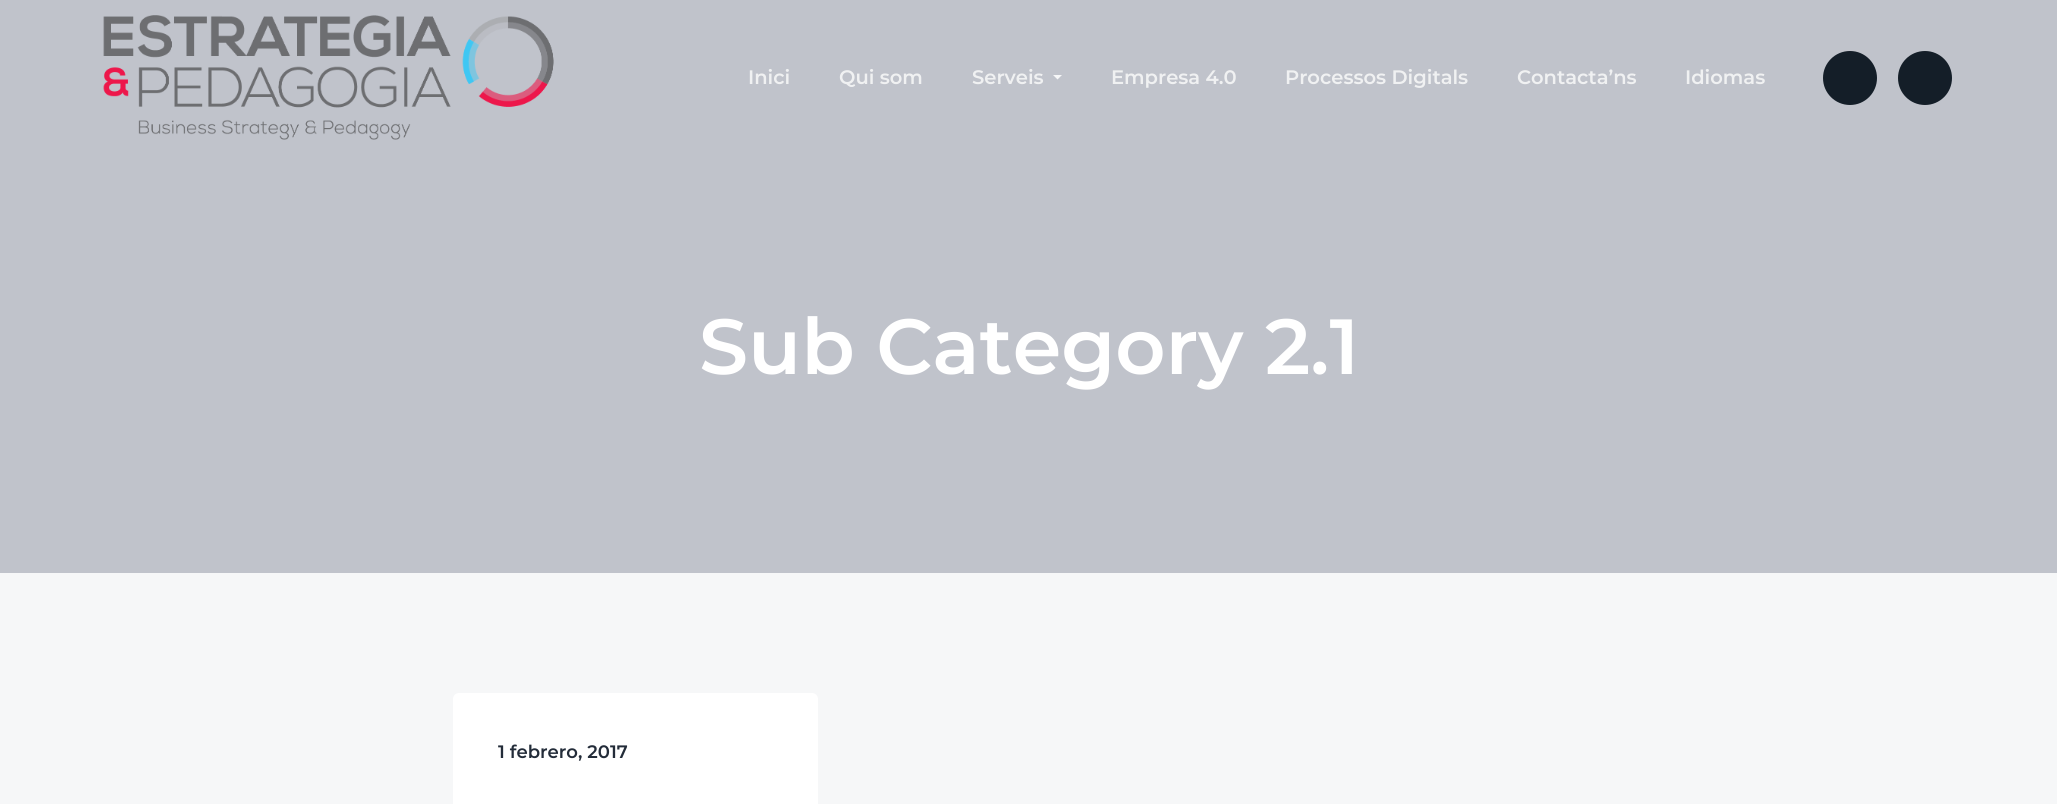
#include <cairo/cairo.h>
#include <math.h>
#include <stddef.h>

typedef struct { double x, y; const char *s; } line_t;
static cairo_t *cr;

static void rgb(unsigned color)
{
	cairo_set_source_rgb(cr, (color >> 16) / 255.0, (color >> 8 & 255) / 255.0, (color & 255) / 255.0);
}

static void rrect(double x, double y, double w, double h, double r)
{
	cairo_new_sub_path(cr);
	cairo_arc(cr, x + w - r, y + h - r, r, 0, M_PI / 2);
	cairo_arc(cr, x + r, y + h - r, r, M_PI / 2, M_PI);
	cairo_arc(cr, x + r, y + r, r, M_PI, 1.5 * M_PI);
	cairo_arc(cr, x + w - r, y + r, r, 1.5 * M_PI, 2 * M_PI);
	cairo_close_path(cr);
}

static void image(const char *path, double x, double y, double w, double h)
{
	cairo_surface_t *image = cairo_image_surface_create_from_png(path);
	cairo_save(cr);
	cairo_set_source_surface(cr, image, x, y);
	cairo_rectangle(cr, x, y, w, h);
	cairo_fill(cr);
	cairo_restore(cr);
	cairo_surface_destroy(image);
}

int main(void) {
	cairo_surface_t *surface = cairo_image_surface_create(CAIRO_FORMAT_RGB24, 2057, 804);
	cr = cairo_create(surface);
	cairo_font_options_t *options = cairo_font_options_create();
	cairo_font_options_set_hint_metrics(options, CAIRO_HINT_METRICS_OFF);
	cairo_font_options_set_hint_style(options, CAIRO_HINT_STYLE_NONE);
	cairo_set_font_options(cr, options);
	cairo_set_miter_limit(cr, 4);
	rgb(0xf6f7f8);
	cairo_paint(cr);
	rgb(0xc0c3cb);
	cairo_rectangle(cr, 0, 0, 2057, 573);
	cairo_fill(cr);
	image("img/1.png", 103, 15, 451, 125);
	rgb(0xf6f7f8);
	cairo_new_path(cr);
	cairo_move_to(cr, 1053, 75);
	cairo_line_to(cr, 1062, 75);
	cairo_line_to(cr, 1057.5, 79.5);
	cairo_close_path(cr);
	cairo_fill(cr);
	rgb(0x141e28);
	cairo_arc(cr, 1850, 78, 27, 0, 2 * M_PI);
	cairo_fill(cr);
	cairo_arc(cr, 1925, 78, 27, 0, 2 * M_PI);
	cairo_fill(cr);
	rgb(0xffffff);
	rrect(453, 693, 365, 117, 6);
	cairo_fill(cr);
	cairo_select_font_face(cr, "Montserrat Thin", CAIRO_FONT_SLANT_NORMAL, CAIRO_FONT_WEIGHT_NORMAL);
	cairo_set_font_size(cr, 19.5);
	rgb(0xf0f1f2);
	{
		static const line_t items[] = {
			{748, 84, "Inici"},
			{839, 84, "Qui som"},
			{972, 84, "Serveis"},
			{1111, 84, "Empresa 4.0"},
			{1285, 84, "Processos Digitals"},
			{1517, 84, "Contacta’ns"},
			{1685, 84, "Idiomas"},
		};
		for (size_t i = 0; i < sizeof items / sizeof *items; i++) {
			cairo_move_to(cr, items[i].x, items[i].y);
			cairo_show_text(cr, items[i].s);
		}
	}
	cairo_set_font_size(cr, 78);
	rgb(0xffffff);
	cairo_move_to(cr, 699, 374);
	cairo_show_text(cr, "Sub Category 2.1");
	cairo_set_font_size(cr, 18);
	rgb(0x232c39);
	cairo_move_to(cr, 498, 758);
	cairo_show_text(cr, "1 febrero, 2017");
	cairo_surface_write_to_png(surface, "page.png");
	cairo_font_options_destroy(options);
	cairo_destroy(cr);
	cairo_surface_destroy(surface);
	return 0;
}
